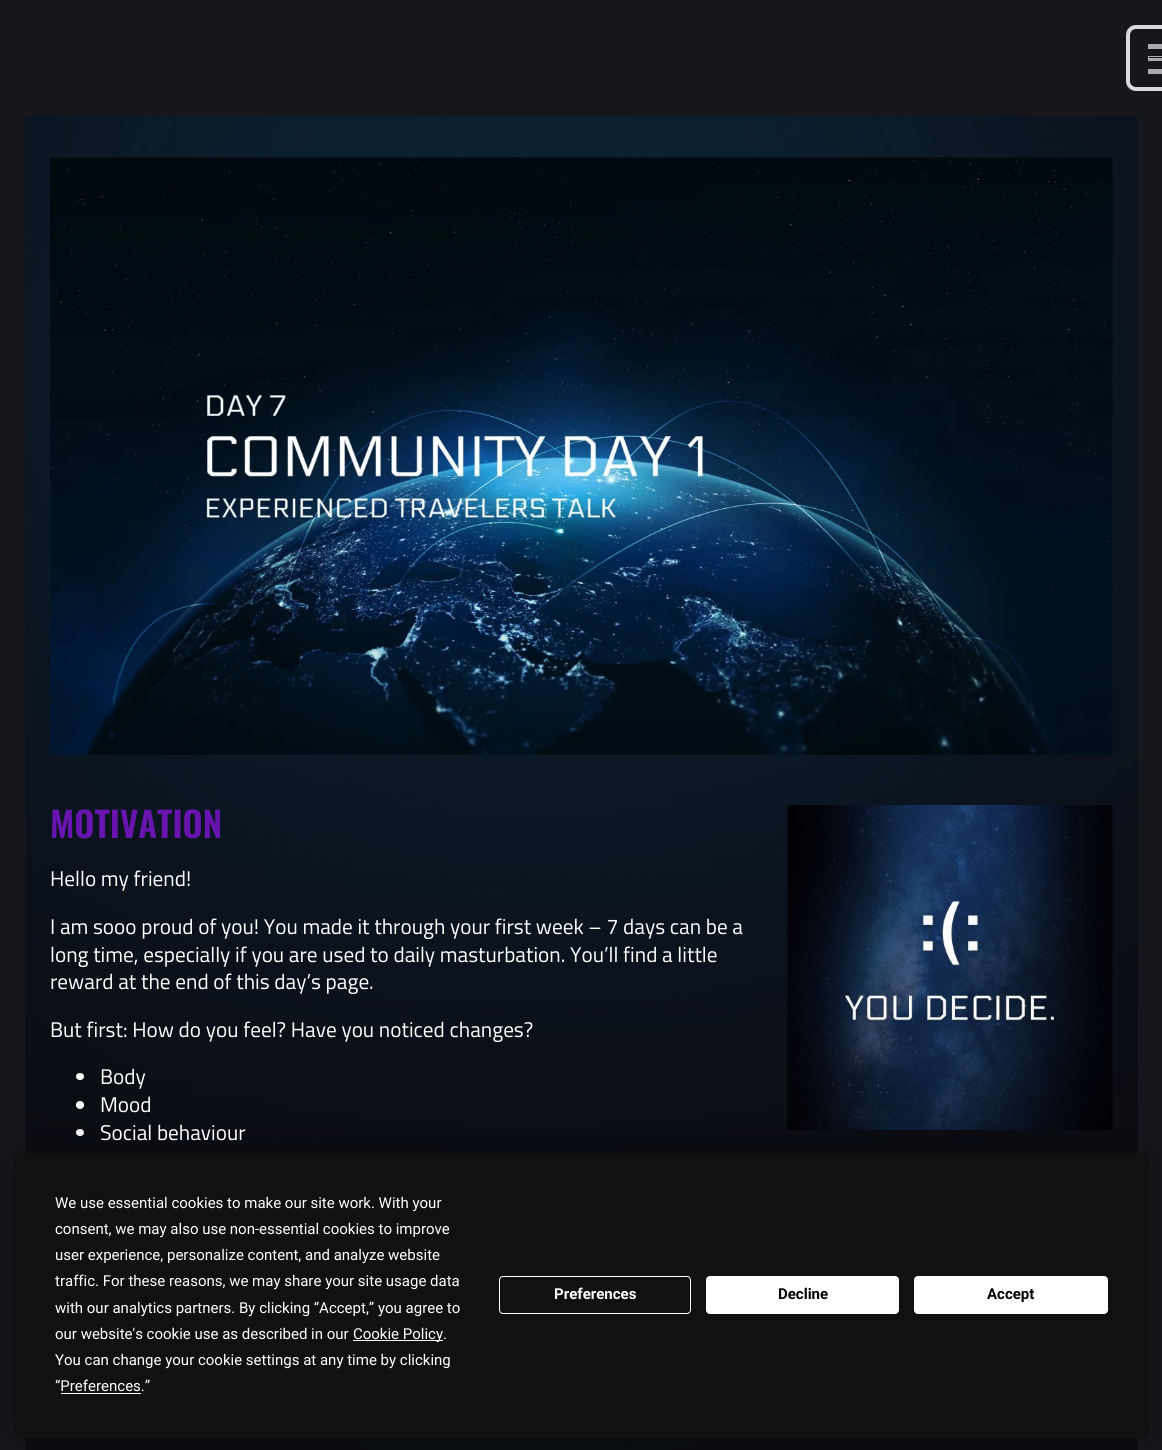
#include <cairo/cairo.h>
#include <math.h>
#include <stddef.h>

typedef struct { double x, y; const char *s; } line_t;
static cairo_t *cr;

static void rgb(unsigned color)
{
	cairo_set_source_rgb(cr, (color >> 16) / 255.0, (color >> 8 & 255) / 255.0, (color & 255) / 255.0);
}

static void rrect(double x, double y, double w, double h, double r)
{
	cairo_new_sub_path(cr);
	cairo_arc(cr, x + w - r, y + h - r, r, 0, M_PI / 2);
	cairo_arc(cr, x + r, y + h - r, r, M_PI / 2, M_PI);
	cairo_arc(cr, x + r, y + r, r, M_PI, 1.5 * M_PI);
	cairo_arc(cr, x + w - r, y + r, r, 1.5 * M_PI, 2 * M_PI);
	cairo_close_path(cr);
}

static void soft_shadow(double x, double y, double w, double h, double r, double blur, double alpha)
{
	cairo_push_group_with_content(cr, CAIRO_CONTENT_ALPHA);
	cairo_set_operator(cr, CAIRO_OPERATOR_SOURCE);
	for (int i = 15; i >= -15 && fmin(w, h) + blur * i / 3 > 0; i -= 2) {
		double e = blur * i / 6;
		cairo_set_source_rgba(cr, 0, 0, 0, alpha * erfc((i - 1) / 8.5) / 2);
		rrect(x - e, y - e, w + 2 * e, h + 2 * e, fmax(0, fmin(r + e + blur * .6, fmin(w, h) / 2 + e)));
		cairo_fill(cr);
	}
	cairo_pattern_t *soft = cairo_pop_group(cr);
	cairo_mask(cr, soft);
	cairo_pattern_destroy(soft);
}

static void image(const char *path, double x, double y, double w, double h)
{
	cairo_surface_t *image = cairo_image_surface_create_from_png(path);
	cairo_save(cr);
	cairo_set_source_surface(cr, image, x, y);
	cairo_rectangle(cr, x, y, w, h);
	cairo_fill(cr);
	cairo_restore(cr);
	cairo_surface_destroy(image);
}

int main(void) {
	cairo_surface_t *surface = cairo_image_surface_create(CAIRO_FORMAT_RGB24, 1162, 1450);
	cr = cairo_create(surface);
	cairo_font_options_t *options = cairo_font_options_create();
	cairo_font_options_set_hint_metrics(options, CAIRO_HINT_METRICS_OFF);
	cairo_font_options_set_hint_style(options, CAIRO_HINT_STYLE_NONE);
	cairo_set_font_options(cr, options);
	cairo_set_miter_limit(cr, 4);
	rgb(0x16161d);
	cairo_paint(cr);
	rrect(1128, 27, 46, 62, 8);
	rgb(0xdadada);
	cairo_set_line_width(cr, 4);
	cairo_stroke(cr);
	rgb(0xababab);
	cairo_rectangle(cr, 1149, 58, 13, 2);
	cairo_fill(cr);
	cairo_rectangle(cr, 1148.5, 56.5, 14, 4);
	cairo_set_line_width(cr, 1);
	cairo_stroke(cr);
	cairo_rectangle(cr, 1148.5, 44.5, 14, 4);
	cairo_fill_preserve(cr);
	cairo_stroke(cr);
	cairo_rectangle(cr, 1148.5, 69.5, 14, 4);
	cairo_fill_preserve(cr);
	cairo_stroke(cr);
	image("img/1.png", 25, 116, 1113, 1334);
	image("img/2.png", 50, 157, 1063, 598);
	rgb(0xffffff);
	rrect(76, 1073, 8, 7, 3.5);
	cairo_fill(cr);
	cairo_arc(cr, 80, 1105, 4, 0, 2 * M_PI);
	cairo_fill(cr);
	rrect(76, 1129, 8, 7, 3.5);
	cairo_fill(cr);
	image("img/3.png", 787, 805, 326, 325);
	rgb(0x000000);
	soft_shadow(13, 1153, 1137, 285, 6, 22, 0.25);
	rgb(0x101212);
	rrect(13, 1153, 1137, 285, 6);
	cairo_fill(cr);
	rgb(0xffffff);
	cairo_rectangle(cr, 353, 1340, 90, 1);
	cairo_fill(cr);
	cairo_rectangle(cr, 61, 1393, 80, 1);
	cairo_fill(cr);
	rrect(499.5, 1276.5, 191, 37, 3.5);
	cairo_stroke(cr);
	rrect(706.5, 1276.5, 192, 37, 3.5);
	cairo_fill_preserve(cr);
	cairo_stroke(cr);
	rrect(914.5, 1276.5, 193, 37, 3.5);
	cairo_fill_preserve(cr);
	cairo_stroke(cr);
	cairo_select_font_face(cr, "Oswald SemiBold", CAIRO_FONT_SLANT_NORMAL, CAIRO_FONT_WEIGHT_NORMAL);
	cairo_set_font_size(cr, 35);
	rgb(0x6715ae);
	cairo_move_to(cr, 50, 838);
	cairo_show_text(cr, "MOTIVATION");
	cairo_select_font_face(cr, "Titillium Web", CAIRO_FONT_SLANT_NORMAL, CAIRO_FONT_WEIGHT_NORMAL);
	cairo_set_font_size(cr, 21.25);
	rgb(0xffffff);
	{
		static const line_t items[] = {
			{50, 886, "Hello my friend!"},
			{50, 934, "I am sooo proud of you! You made it through your first week – 7 days can be a"},
			{50, 962, "long time, especially if you are used to daily masturbation. You’ll find a little"},
			{50, 989, "reward at the end of this day’s page."},
			{50, 1037, "But first: How do you feel? Have you noticed changes?"},
			{100, 1084, "Body"},
			{100, 1112, "Mood"},
			{100, 1140, "Social behaviour"},
		};
		for (size_t i = 0; i < sizeof items / sizeof *items; i++) {
			cairo_move_to(cr, items[i].x, items[i].y);
			cairo_show_text(cr, items[i].s);
		}
	}
	cairo_select_font_face(cr, "Roboto", CAIRO_FONT_SLANT_NORMAL, CAIRO_FONT_WEIGHT_NORMAL);
	cairo_set_font_size(cr, 15);
	{
		static const line_t items[] = {
			{55, 1208, "We use essential cookies to make our site work. With your"},
			{55, 1234, "consent, we may also use non-essential cookies to improve"},
			{55, 1260, "user experience, personalize content, and analyze website"},
			{55, 1286, "traffic. For these reasons, we may share your site usage data"},
			{55, 1313, "with our analytics partners. By clicking “Accept,” you agree to"},
			{55, 1339, "our website's cookie use as described in our"},
			{353, 1339, "Cookie Policy."},
			{55, 1365, "You can change your cookie settings at any time by clicking"},
			{55, 1391, "“Preferences.”"},
		};
		for (size_t i = 0; i < sizeof items / sizeof *items; i++) {
			cairo_move_to(cr, items[i].x, items[i].y);
			cairo_show_text(cr, items[i].s);
		}
	}
	cairo_select_font_face(cr, "Roboto", CAIRO_FONT_SLANT_NORMAL, CAIRO_FONT_WEIGHT_BOLD);
	cairo_move_to(cr, 554, 1299);
	cairo_show_text(cr, "Preferences");
	rgb(0x000000);
	cairo_move_to(cr, 778, 1299);
	cairo_show_text(cr, "Decline");
	cairo_move_to(cr, 987, 1299);
	cairo_show_text(cr, "Accept");
	cairo_surface_write_to_png(surface, "page.png");
	cairo_font_options_destroy(options);
	cairo_destroy(cr);
	cairo_surface_destroy(surface);
	return 0;
}
